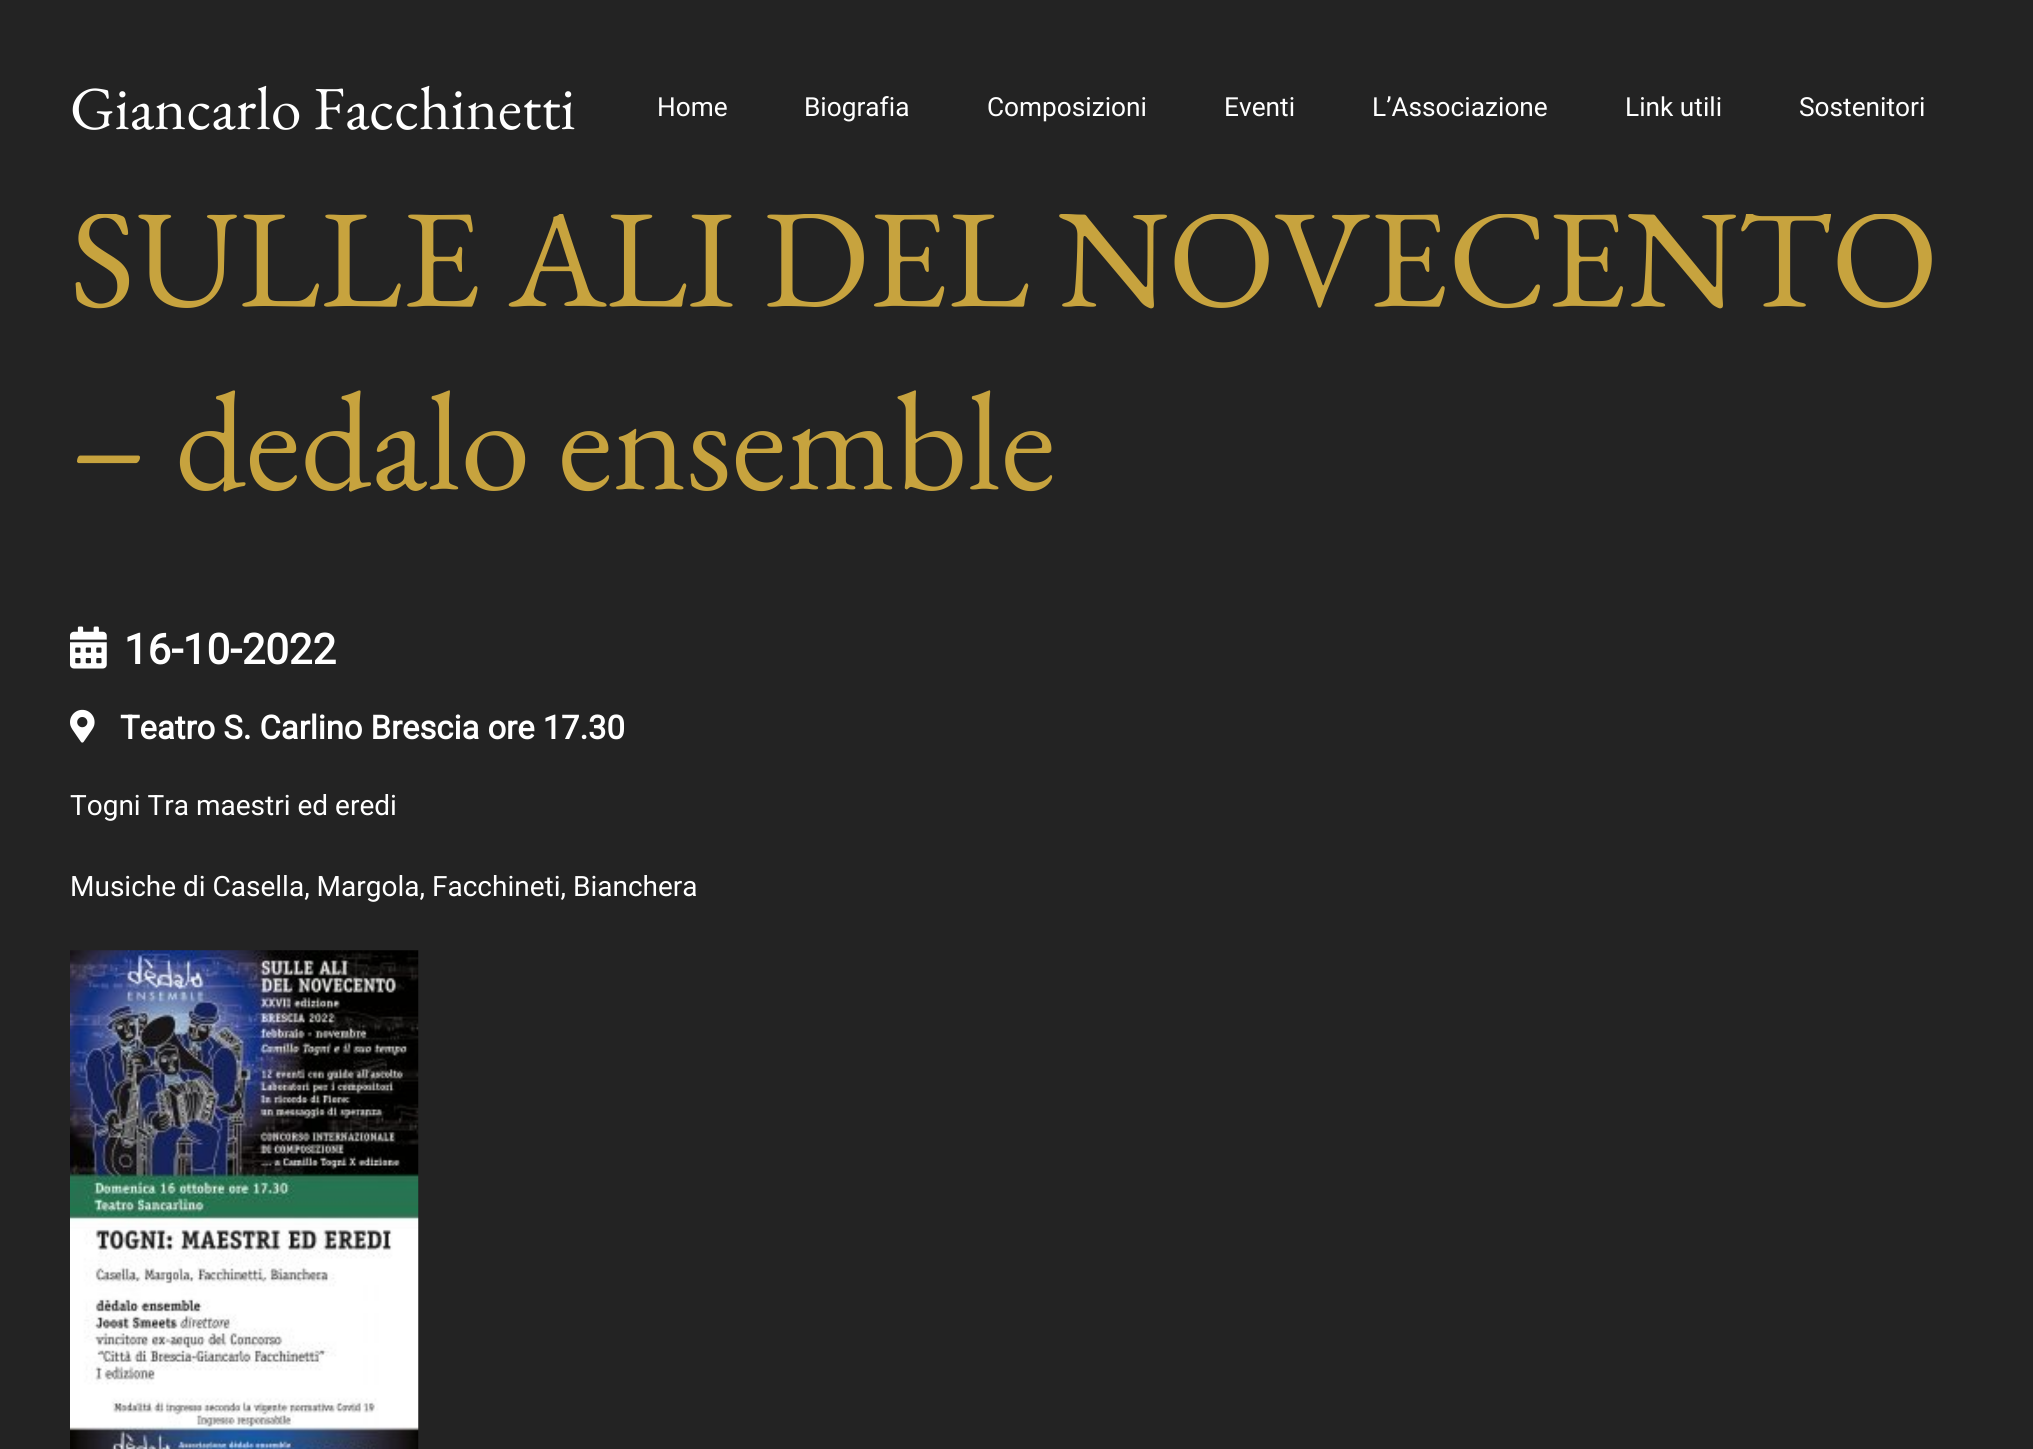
#include <cairo/cairo.h>
#include <math.h>
#include <stddef.h>

typedef struct { double x, y; const char *s; } line_t;
static cairo_t *cr;

static void rgb(unsigned color)
{
	cairo_set_source_rgb(cr, (color >> 16) / 255.0, (color >> 8 & 255) / 255.0, (color & 255) / 255.0);
}

static void image(const char *path, double x, double y, double w, double h)
{
	cairo_surface_t *image = cairo_image_surface_create_from_png(path);
	cairo_save(cr);
	cairo_set_source_surface(cr, image, x, y);
	cairo_rectangle(cr, x, y, w, h);
	cairo_fill(cr);
	cairo_restore(cr);
	cairo_surface_destroy(image);
}

int main(void) {
	cairo_surface_t *surface = cairo_image_surface_create(CAIRO_FORMAT_RGB24, 2033, 1449);
	cr = cairo_create(surface);
	cairo_font_options_t *options = cairo_font_options_create();
	cairo_font_options_set_hint_metrics(options, CAIRO_HINT_METRICS_OFF);
	cairo_font_options_set_hint_style(options, CAIRO_HINT_STYLE_NONE);
	cairo_set_font_options(cr, options);
	cairo_set_miter_limit(cr, 4);
	rgb(0x232323);
	cairo_paint(cr);
	image("img/1.png", 70, 626, 37, 43);
	image("img/2.png", 70, 709, 25, 34);
	image("img/3.png", 70, 950, 349, 499);
	cairo_select_font_face(cr, "EB Garamond", CAIRO_FONT_SLANT_NORMAL, CAIRO_FONT_WEIGHT_NORMAL);
	cairo_set_font_size(cr, 61.25);
	rgb(0xffffff);
	cairo_move_to(cr, 70, 129);
	cairo_show_text(cr, "Giancarlo Facchinetti");
	cairo_select_font_face(cr, "Roboto", CAIRO_FONT_SLANT_NORMAL, CAIRO_FONT_WEIGHT_NORMAL);
	cairo_set_font_size(cr, 26.25);
	{
		static const line_t items[] = {
			{657, 116, "Home"},
			{804, 116, "Biografia"},
			{987, 116, "Composizioni"},
			{1224, 116, "Eventi"},
			{1372, 116, "L’Associazione"},
			{1625, 116, "Link utili"},
			{1799, 116, "Sostenitori"},
		};
		for (size_t i = 0; i < sizeof items / sizeof *items; i++) {
			cairo_move_to(cr, items[i].x, items[i].y);
			cairo_show_text(cr, items[i].s);
		}
	}
	cairo_select_font_face(cr, "EB Garamond", CAIRO_FONT_SLANT_NORMAL, CAIRO_FONT_WEIGHT_NORMAL);
	cairo_set_font_size(cr, 140);
	rgb(0xc7a33e);
	cairo_move_to(cr, 70, 306);
	cairo_show_text(cr, "SULLE ALI DEL NOVECENTO");
	rgb(0x232323);
	cairo_rectangle(cr, 98, 208, 1797, 6);
	cairo_fill(cr);
	rgb(0xc7a33e);
	cairo_move_to(cr, 70, 489);
	cairo_show_text(cr, "– dedalo ensemble");
	cairo_select_font_face(cr, "Roboto", CAIRO_FONT_SLANT_NORMAL, CAIRO_FONT_WEIGHT_BOLD);
	cairo_set_font_size(cr, 42);
	rgb(0xffffff);
	cairo_move_to(cr, 124, 664);
	cairo_show_text(cr, "16-10-2022");
	cairo_set_font_size(cr, 32.75);
	cairo_move_to(cr, 120, 739);
	cairo_show_text(cr, "Teatro S. Carlino Brescia ore 17.30");
	cairo_select_font_face(cr, "Roboto", CAIRO_FONT_SLANT_NORMAL, CAIRO_FONT_WEIGHT_NORMAL);
	cairo_set_font_size(cr, 28);
	cairo_move_to(cr, 70, 815);
	cairo_show_text(cr, "Togni Tra maestri ed eredi");
	cairo_move_to(cr, 70, 896);
	cairo_show_text(cr, "Musiche di Casella, Margola, Facchineti, Bianchera");
	cairo_surface_write_to_png(surface, "page.png");
	cairo_font_options_destroy(options);
	cairo_destroy(cr);
	cairo_surface_destroy(surface);
	return 0;
}
